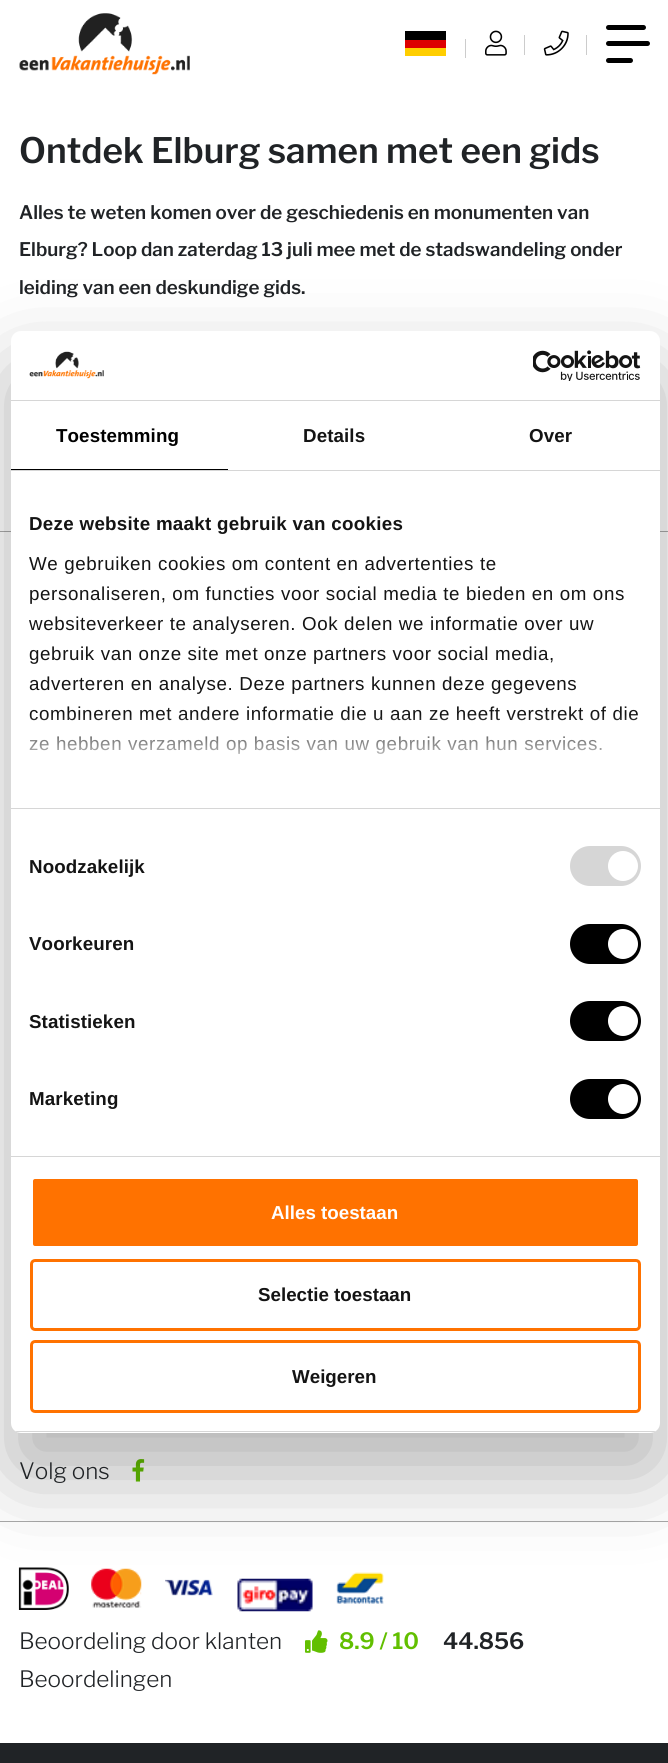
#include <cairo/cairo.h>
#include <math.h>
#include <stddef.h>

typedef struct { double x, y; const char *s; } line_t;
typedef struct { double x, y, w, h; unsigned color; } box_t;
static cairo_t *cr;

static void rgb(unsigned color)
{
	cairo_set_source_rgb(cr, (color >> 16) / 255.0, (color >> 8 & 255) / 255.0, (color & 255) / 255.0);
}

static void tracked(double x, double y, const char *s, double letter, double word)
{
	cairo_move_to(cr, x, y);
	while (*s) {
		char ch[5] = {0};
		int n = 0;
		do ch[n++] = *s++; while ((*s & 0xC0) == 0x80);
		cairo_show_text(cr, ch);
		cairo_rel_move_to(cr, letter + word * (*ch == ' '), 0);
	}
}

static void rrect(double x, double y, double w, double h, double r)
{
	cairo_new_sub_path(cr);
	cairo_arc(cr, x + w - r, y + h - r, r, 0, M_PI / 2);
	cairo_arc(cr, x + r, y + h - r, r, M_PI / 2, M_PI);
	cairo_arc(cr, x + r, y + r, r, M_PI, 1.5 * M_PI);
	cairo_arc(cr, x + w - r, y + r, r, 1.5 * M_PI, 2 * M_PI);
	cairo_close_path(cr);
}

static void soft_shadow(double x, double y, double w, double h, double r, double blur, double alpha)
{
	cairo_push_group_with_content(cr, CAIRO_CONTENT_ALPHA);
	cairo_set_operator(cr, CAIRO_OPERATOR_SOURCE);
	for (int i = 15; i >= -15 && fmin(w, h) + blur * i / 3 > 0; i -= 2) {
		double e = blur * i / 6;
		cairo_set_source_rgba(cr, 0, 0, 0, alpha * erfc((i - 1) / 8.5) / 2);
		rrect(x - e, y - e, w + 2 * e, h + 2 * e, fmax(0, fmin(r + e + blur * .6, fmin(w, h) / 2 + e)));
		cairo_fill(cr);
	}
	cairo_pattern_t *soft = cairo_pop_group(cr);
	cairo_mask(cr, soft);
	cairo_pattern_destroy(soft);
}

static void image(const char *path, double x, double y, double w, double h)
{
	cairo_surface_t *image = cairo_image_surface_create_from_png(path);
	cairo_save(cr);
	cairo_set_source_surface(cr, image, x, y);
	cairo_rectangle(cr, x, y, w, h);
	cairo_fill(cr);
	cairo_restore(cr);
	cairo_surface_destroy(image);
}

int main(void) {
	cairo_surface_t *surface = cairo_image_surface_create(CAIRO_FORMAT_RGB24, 668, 1763);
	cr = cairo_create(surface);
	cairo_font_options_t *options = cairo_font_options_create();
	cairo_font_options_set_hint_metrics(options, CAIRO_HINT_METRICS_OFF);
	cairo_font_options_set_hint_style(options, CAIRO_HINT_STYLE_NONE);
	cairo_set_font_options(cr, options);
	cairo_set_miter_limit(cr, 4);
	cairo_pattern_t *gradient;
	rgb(0xffffff);
	cairo_paint(cr);
	image("img/1.png", 19, 13, 171, 62);
	{
		static const box_t items[] = {
			{405, 31, 41, 9, 0x000000},
			{405, 40, 41, 8, 0xdd0000},
			{405, 48, 41, 8, 0xffce00},
			{465, 39, 1, 19, 0xcccccc},
		};
		for (size_t i = 0; i < sizeof items / sizeof *items; i++) {
			rgb(items[i].color);
			cairo_rectangle(cr, items[i].x, items[i].y, items[i].w, items[i].h);
			cairo_fill(cr);
		}
	}
	image("img/2.png", 485, 30, 22, 26);
	cairo_rectangle(cr, 524, 35, 1, 20);
	cairo_fill(cr);
	image("img/3.png", 543, 30, 26, 26);
	cairo_rectangle(cr, 586, 35, 1, 20);
	cairo_fill(cr);
	rgb(0x000000);
	rrect(606, 25, 40, 5, 2.5);
	cairo_fill(cr);
	rrect(606, 41, 44, 5, 2.5);
	cairo_fill(cr);
	rrect(606, 58, 27, 5, 2.5);
	cairo_fill(cr);
	rgb(0xaaaaaa);
	cairo_rectangle(cr, 0, 531, 668, 1);
	cairo_fill(cr);
	image("img/6.png", 132, 1459, 13, 23);
	cairo_rectangle(cr, 0, 1521, 668, 1);
	cairo_fill(cr);
	image("img/7.png", 18, 1567, 51, 43);
	image("img/8.png", 91, 1568, 51, 40);
	image("img/9.png", 165, 1579, 48, 17);
	image("img/10.png", 237, 1578, 76, 34);
	image("img/11.png", 336, 1572, 48, 32);
	rgb(0x000000);
	soft_shadow(11, 371, 649, 1102, 10, 42.5, 0.3);
	rgb(0xffffff);
	rrect(11, 331, 649, 1102, 10);
	cairo_fill(cr);
	rgb(0xd6d6d6);
	cairo_rectangle(cr, 11, 400, 649, 1);
	cairo_fill(cr);
	image("img/4.png", 29, 351, 75, 28);
	image("img/5.png", 533, 350, 108, 31);
	{
		static const box_t items[] = {
			{11, 470, 649, 1, 0xd6d6d6},
			{11, 469, 217, 1, 0x000000},
			{11, 808, 649, 1, 0xd6d6d6},
			{11, 1156, 649, 1, 0xd6d6d6},
		};
		for (size_t i = 0; i < sizeof items / sizeof *items; i++) {
			rgb(items[i].color);
			cairo_rectangle(cr, items[i].x, items[i].y, items[i].w, items[i].h);
			cairo_fill(cr);
		}
	}
	rrect(570, 846, 71, 40, 20);
	cairo_fill(cr);
	rgb(0xffffff);
	cairo_arc(cr, 623, 866, 15, 0, 2 * M_PI);
	cairo_fill(cr);
	rgb(0x000000);
	rrect(570, 924, 71, 40, 20);
	cairo_fill(cr);
	rgb(0xffffff);
	cairo_arc(cr, 623, 944, 15, 0, 2 * M_PI);
	cairo_fill(cr);
	rgb(0x000000);
	rrect(570, 1001, 71, 40, 20);
	cairo_fill(cr);
	rgb(0xffffff);
	cairo_arc(cr, 623, 1021, 15, 0, 2 * M_PI);
	cairo_fill(cr);
	rgb(0x000000);
	rrect(570, 1079, 71, 40, 20);
	cairo_fill(cr);
	rgb(0xffffff);
	cairo_arc(cr, 623, 1099, 15, 0, 2 * M_PI);
	cairo_fill(cr);
	cairo_save(cr);
	rrect(11, 331, 649, 1102, 10);
	cairo_clip(cr);
	rgb(0xd6d6d6);
	cairo_rectangle(cr, 11, 1431, 649, 1);
	cairo_fill(cr);
	cairo_restore(cr);
	rgb(0xff7200);
	rrect(31.5, 1177.5, 608, 70, 3.5);
	cairo_fill_preserve(cr);
	rgb(0xffffff);
	cairo_set_line_width(cr, 3);
	cairo_stroke(cr);
	rrect(31.5, 1260.5, 608, 69, 3.5);
	rgb(0xff7200);
	cairo_stroke(cr);
	rrect(31.5, 1341.5, 608, 70, 3.5);
	cairo_stroke(cr);
	image("img/12.png", 305, 1630, 23, 23);
	rgb(0x202326);
	cairo_rectangle(cr, 0, 1743, 668, 20);
	cairo_fill(cr);
	cairo_select_font_face(cr, "Libre Franklin SemiBold", CAIRO_FONT_SLANT_NORMAL, CAIRO_FONT_WEIGHT_NORMAL);
	cairo_set_font_size(cr, 35);
	cairo_move_to(cr, 19, 163);
	cairo_show_text(cr, "Ontdek Elburg samen met een gids");
	cairo_set_font_size(cr, 18.75);
	{
		static const line_t items[] = {
			{19, 219, "Alles te weten komen over de geschiedenis en monumenten van"},
			{19, 256, "Elburg? Loop dan zaterdag 13 juli mee met de stadswandeling onder"},
			{19, 294, "leiding van een deskundige gids."},
		};
		for (size_t i = 0; i < sizeof items / sizeof *items; i++) {
			cairo_move_to(cr, items[i].x, items[i].y);
			cairo_show_text(cr, items[i].s);
		}
	}
	cairo_select_font_face(cr, "Liberation Sans", CAIRO_FONT_SLANT_NORMAL, CAIRO_FONT_WEIGHT_BOLD);
	rgb(0x000000);
	tracked(56, 442, "Toestemming", 0.1, 0);
	rgb(0x141414);
	tracked(303, 442, "Details", 0.1, 0);
	tracked(529, 442, "Over", 0.1, 0);
	tracked(29, 530, "Deze website maakt gebruik van cookies", 0.3, 0);
	cairo_select_font_face(cr, "Liberation Sans", CAIRO_FONT_SLANT_NORMAL, CAIRO_FONT_WEIGHT_NORMAL);
	{
		static const line_t items[] = {
			{29, 570, "We gebruiken cookies om content en advertenties te"},
			{29, 600, "personaliseren, om functies voor social media te bieden en om ons"},
			{29, 630, "websiteverkeer te analyseren. Ook delen we informatie over uw"},
			{29, 660, "gebruik van onze site met onze partners voor social media,"},
			{29, 690, "adverteren en analyse. Deze partners kunnen deze gegevens"},
			{29, 720, "combineren met andere informatie die u aan ze heeft verstrekt of die"},
			{29, 750, "ze hebben verzameld op basis van uw gebruik van hun services."},
		};
		for (size_t i = 0; i < sizeof items / sizeof *items; i++) {
			tracked(items[i].x, items[i].y, items[i].s, 0.62, 0);
		}
	}
	gradient = cairo_pattern_create_linear(327, 808, 327, 714);
	cairo_pattern_add_color_stop_rgba(gradient, 0, 1, 1, 1, 1);
	cairo_pattern_add_color_stop_rgba(gradient, 0.5, 1, 1, 1, 0.8);
	cairo_pattern_add_color_stop_rgba(gradient, 1, 1, 1, 1, 0);
	cairo_set_source(cr, gradient);
	cairo_pattern_destroy(gradient);
	cairo_rectangle(cr, 29, 715, 609, 39);
	cairo_fill(cr);
	cairo_select_font_face(cr, "Liberation Sans", CAIRO_FONT_SLANT_NORMAL, CAIRO_FONT_WEIGHT_BOLD);
	rgb(0x141414);
	{
		static const line_t items[] = {
			{29, 873, "Noodzakelijk"},
			{29, 950, "Voorkeuren"},
			{29, 1028, "Statistieken"},
			{29, 1105, "Marketing"},
		};
		for (size_t i = 0; i < sizeof items / sizeof *items; i++) {
			tracked(items[i].x, items[i].y, items[i].s, 0.1, 0);
		}
	}
	rgb(0xffffff);
	cairo_move_to(cr, 271, 1219);
	cairo_show_text(cr, "Alles toestaan");
	rgb(0x141414);
	cairo_move_to(cr, 258, 1301);
	cairo_show_text(cr, "Selectie toestaan");
	cairo_move_to(cr, 292, 1383);
	cairo_show_text(cr, "Weigeren");
	cairo_select_font_face(cr, "Libre Franklin Light", CAIRO_FONT_SLANT_NORMAL, CAIRO_FONT_WEIGHT_NORMAL);
	cairo_set_font_size(cr, 22.5);
	rgb(0x202326);
	cairo_move_to(cr, 19, 1479);
	cairo_show_text(cr, "Volg ons");
	cairo_move_to(cr, 19, 1649);
	cairo_show_text(cr, "Beoordeling door klanten");
	cairo_select_font_face(cr, "Libre Franklin SemiBold", CAIRO_FONT_SLANT_NORMAL, CAIRO_FONT_WEIGHT_NORMAL);
	rgb(0x62bf00);
	cairo_move_to(cr, 339, 1649);
	cairo_show_text(cr, "8.9 / 10");
	rgb(0x202326);
	cairo_move_to(cr, 443, 1649);
	cairo_show_text(cr, "44.856");
	cairo_select_font_face(cr, "Libre Franklin Light", CAIRO_FONT_SLANT_NORMAL, CAIRO_FONT_WEIGHT_NORMAL);
	cairo_move_to(cr, 19, 1687);
	cairo_show_text(cr, "Beoordelingen");
	cairo_surface_write_to_png(surface, "page.png");
	cairo_font_options_destroy(options);
	cairo_destroy(cr);
	cairo_surface_destroy(surface);
	return 0;
}
